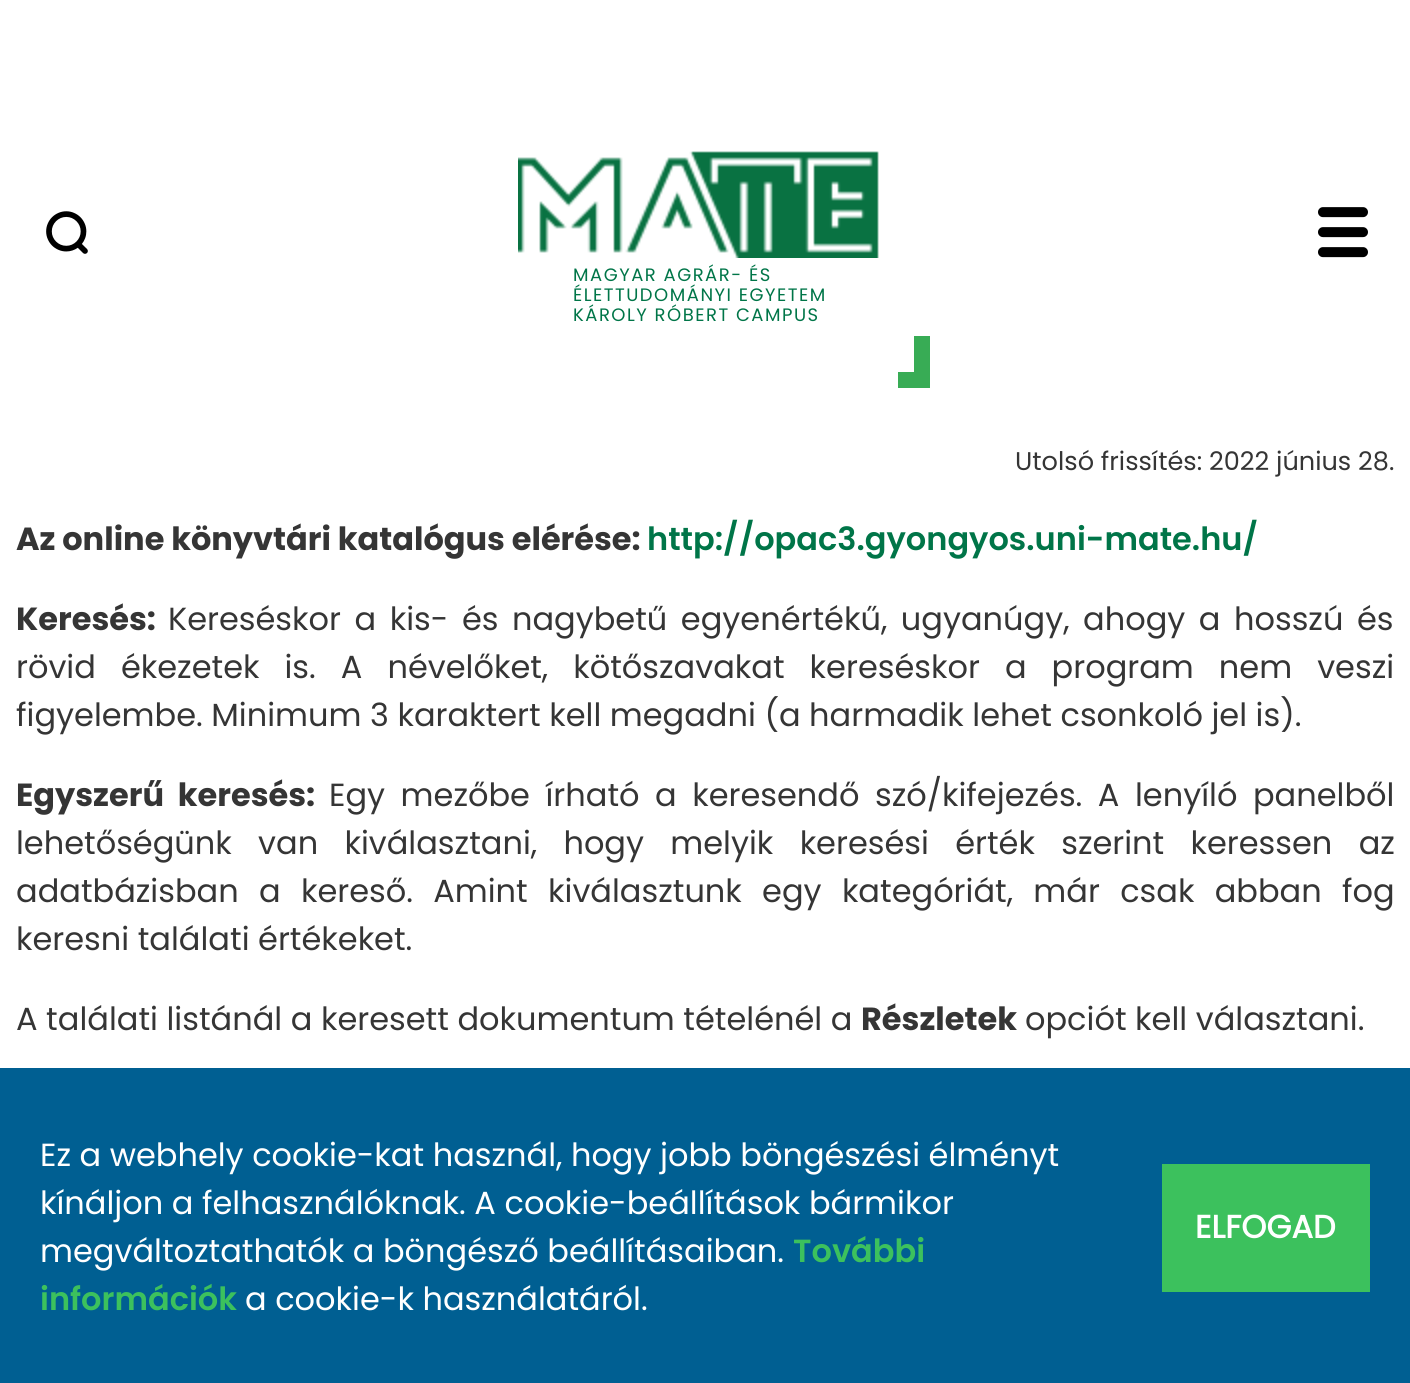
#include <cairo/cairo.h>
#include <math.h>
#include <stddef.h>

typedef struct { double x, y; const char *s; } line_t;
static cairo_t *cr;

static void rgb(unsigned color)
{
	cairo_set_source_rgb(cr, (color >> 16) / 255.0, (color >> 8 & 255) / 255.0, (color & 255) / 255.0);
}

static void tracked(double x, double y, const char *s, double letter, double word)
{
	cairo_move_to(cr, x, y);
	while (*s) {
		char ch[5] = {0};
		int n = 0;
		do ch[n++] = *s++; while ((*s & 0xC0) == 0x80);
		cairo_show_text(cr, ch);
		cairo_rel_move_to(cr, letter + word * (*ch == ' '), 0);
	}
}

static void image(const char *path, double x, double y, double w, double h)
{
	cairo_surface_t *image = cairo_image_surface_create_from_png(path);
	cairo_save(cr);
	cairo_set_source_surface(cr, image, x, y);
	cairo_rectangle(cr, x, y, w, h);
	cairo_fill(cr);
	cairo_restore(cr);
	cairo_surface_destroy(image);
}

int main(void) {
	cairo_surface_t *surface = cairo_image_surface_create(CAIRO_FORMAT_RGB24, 1410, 1383);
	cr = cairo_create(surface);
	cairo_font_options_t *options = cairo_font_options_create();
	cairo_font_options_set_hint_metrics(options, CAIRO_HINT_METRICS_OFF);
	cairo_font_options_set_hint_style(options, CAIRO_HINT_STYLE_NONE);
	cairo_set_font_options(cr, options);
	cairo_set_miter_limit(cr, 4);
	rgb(0xffffff);
	cairo_paint(cr);
	image("img/1.png", 46, 211, 42, 43);
	image("img/2.png", 1318, 207, 50, 51);
	image("img/3.png", 518, 151, 361, 107);
	rgb(0x38ac55);
	cairo_new_path(cr);
	cairo_move_to(cr, 898, 372);
	cairo_line_to(cr, 898, 388);
	cairo_line_to(cr, 930, 388);
	cairo_line_to(cr, 930, 336);
	cairo_line_to(cr, 914, 336);
	cairo_line_to(cr, 914, 372);
	cairo_close_path(cr);
	cairo_fill(cr);
	rgb(0x005f92);
	cairo_rectangle(cr, 0, 1068, 1410, 315);
	cairo_fill(cr);
	rgb(0x3cc15d);
	cairo_rectangle(cr, 1162, 1164, 208, 128);
	cairo_fill(cr);
	cairo_select_font_face(cr, "Poppins", CAIRO_FONT_SLANT_NORMAL, CAIRO_FONT_WEIGHT_NORMAL);
	cairo_set_font_size(cr, 18);
	rgb(0x007548);
	{
		static const line_t items[] = {
			{573, 281, "MAGYAR AGRÁR- ÉS"},
			{573, 301, "ÉLETTUDOMÁNYI EGYETEM"},
			{573, 321, "KÁROLY RÓBERT CAMPUS"},
		};
		for (size_t i = 0; i < sizeof items / sizeof *items; i++) {
			tracked(items[i].x, items[i].y, items[i].s, 1.5, 0);
		}
	}
	cairo_set_font_size(cr, 25.6);
	rgb(0x353535);
	cairo_move_to(cr, 1015, 470);
	cairo_show_text(cr, "Utolsó frissítés: 2022 június 28.");
	cairo_select_font_face(cr, "Poppins", CAIRO_FONT_SLANT_NORMAL, CAIRO_FONT_WEIGHT_BOLD);
	cairo_set_font_size(cr, 32);
	cairo_move_to(cr, 16, 550);
	cairo_show_text(cr, "Az online könyvtári katalógus elérése:");
	cairo_select_font_face(cr, "Poppins SemiBold", CAIRO_FONT_SLANT_NORMAL, CAIRO_FONT_WEIGHT_NORMAL);
	rgb(0x007548);
	cairo_move_to(cr, 647, 550);
	cairo_show_text(cr, "http://opac3.gyongyos.uni-mate.hu/");
	cairo_select_font_face(cr, "Poppins", CAIRO_FONT_SLANT_NORMAL, CAIRO_FONT_WEIGHT_BOLD);
	rgb(0x353535);
	cairo_move_to(cr, 16, 630);
	cairo_show_text(cr, "Keresés:");
	cairo_select_font_face(cr, "Poppins", CAIRO_FONT_SLANT_NORMAL, CAIRO_FONT_WEIGHT_NORMAL);
	tracked(168, 630, "Kereséskor a kis- és nagybetű egyenértékű, ugyanúgy, ahogy a hosszú és", 0, 5);
	tracked(16, 678, "rövid ékezetek is. A névelőket, kötőszavakat kereséskor a program nem veszi", 0, 16.5);
	cairo_move_to(cr, 16, 726);
	cairo_show_text(cr, "figyelembe. Minimum 3 karaktert kell megadni (a harmadik lehet csonkoló jel is).");
	cairo_select_font_face(cr, "Poppins", CAIRO_FONT_SLANT_NORMAL, CAIRO_FONT_WEIGHT_BOLD);
	tracked(16, 806, "Egyszerű keresés:", 0, 7);
	cairo_select_font_face(cr, "Poppins", CAIRO_FONT_SLANT_NORMAL, CAIRO_FONT_WEIGHT_NORMAL);
	tracked(329, 806, "Egy mezőbe írható a keresendő szó/kifejezés. A lenyíló panelből", 0, 7);
	tracked(16, 854, "lehetőségünk van kiválasztani, hogy melyik keresési érték szerint keressen az", 0, 17.75);
	tracked(16, 902, "adatbázisban a kereső. Amint kiválasztunk egy kategóriát, már csak abban fog", 0, 11.75);
	cairo_move_to(cr, 16, 950);
	cairo_show_text(cr, "keresni találati értékeket.");
	cairo_move_to(cr, 16, 1030);
	cairo_show_text(cr, "A találati listánál a keresett dokumentum tételénél a");
	cairo_select_font_face(cr, "Poppins", CAIRO_FONT_SLANT_NORMAL, CAIRO_FONT_WEIGHT_BOLD);
	cairo_move_to(cr, 861, 1030);
	cairo_show_text(cr, "Részletek");
	cairo_select_font_face(cr, "Poppins", CAIRO_FONT_SLANT_NORMAL, CAIRO_FONT_WEIGHT_NORMAL);
	cairo_move_to(cr, 1025, 1030);
	cairo_show_text(cr, "opciót kell választani.");
	rgb(0xffffff);
	{
		static const line_t items[] = {
			{40, 1166, "Ez a webhely cookie-kat használ, hogy jobb böngészési élményt"},
			{40, 1214, "kínáljon a felhasználóknak. A cookie-beállítások bármikor"},
			{40, 1262, "megváltoztathatók a böngésző beállításaiban."},
		};
		for (size_t i = 0; i < sizeof items / sizeof *items; i++) {
			cairo_move_to(cr, items[i].x, items[i].y);
			cairo_show_text(cr, items[i].s);
		}
	}
	cairo_select_font_face(cr, "Poppins SemiBold", CAIRO_FONT_SLANT_NORMAL, CAIRO_FONT_WEIGHT_NORMAL);
	rgb(0x3cc15d);
	cairo_move_to(cr, 793, 1262);
	cairo_show_text(cr, "További");
	cairo_move_to(cr, 40, 1310);
	cairo_show_text(cr, "információk");
	cairo_select_font_face(cr, "Poppins", CAIRO_FONT_SLANT_NORMAL, CAIRO_FONT_WEIGHT_NORMAL);
	rgb(0xffffff);
	cairo_move_to(cr, 245, 1310);
	cairo_show_text(cr, "a cookie-k használatáról.");
	cairo_select_font_face(cr, "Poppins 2", CAIRO_FONT_SLANT_NORMAL, CAIRO_FONT_WEIGHT_BOLD);
	cairo_move_to(cr, 1195, 1238);
	cairo_show_text(cr, "ELFOGAD");
	cairo_surface_write_to_png(surface, "page.png");
	cairo_font_options_destroy(options);
	cairo_destroy(cr);
	cairo_surface_destroy(surface);
	return 0;
}
